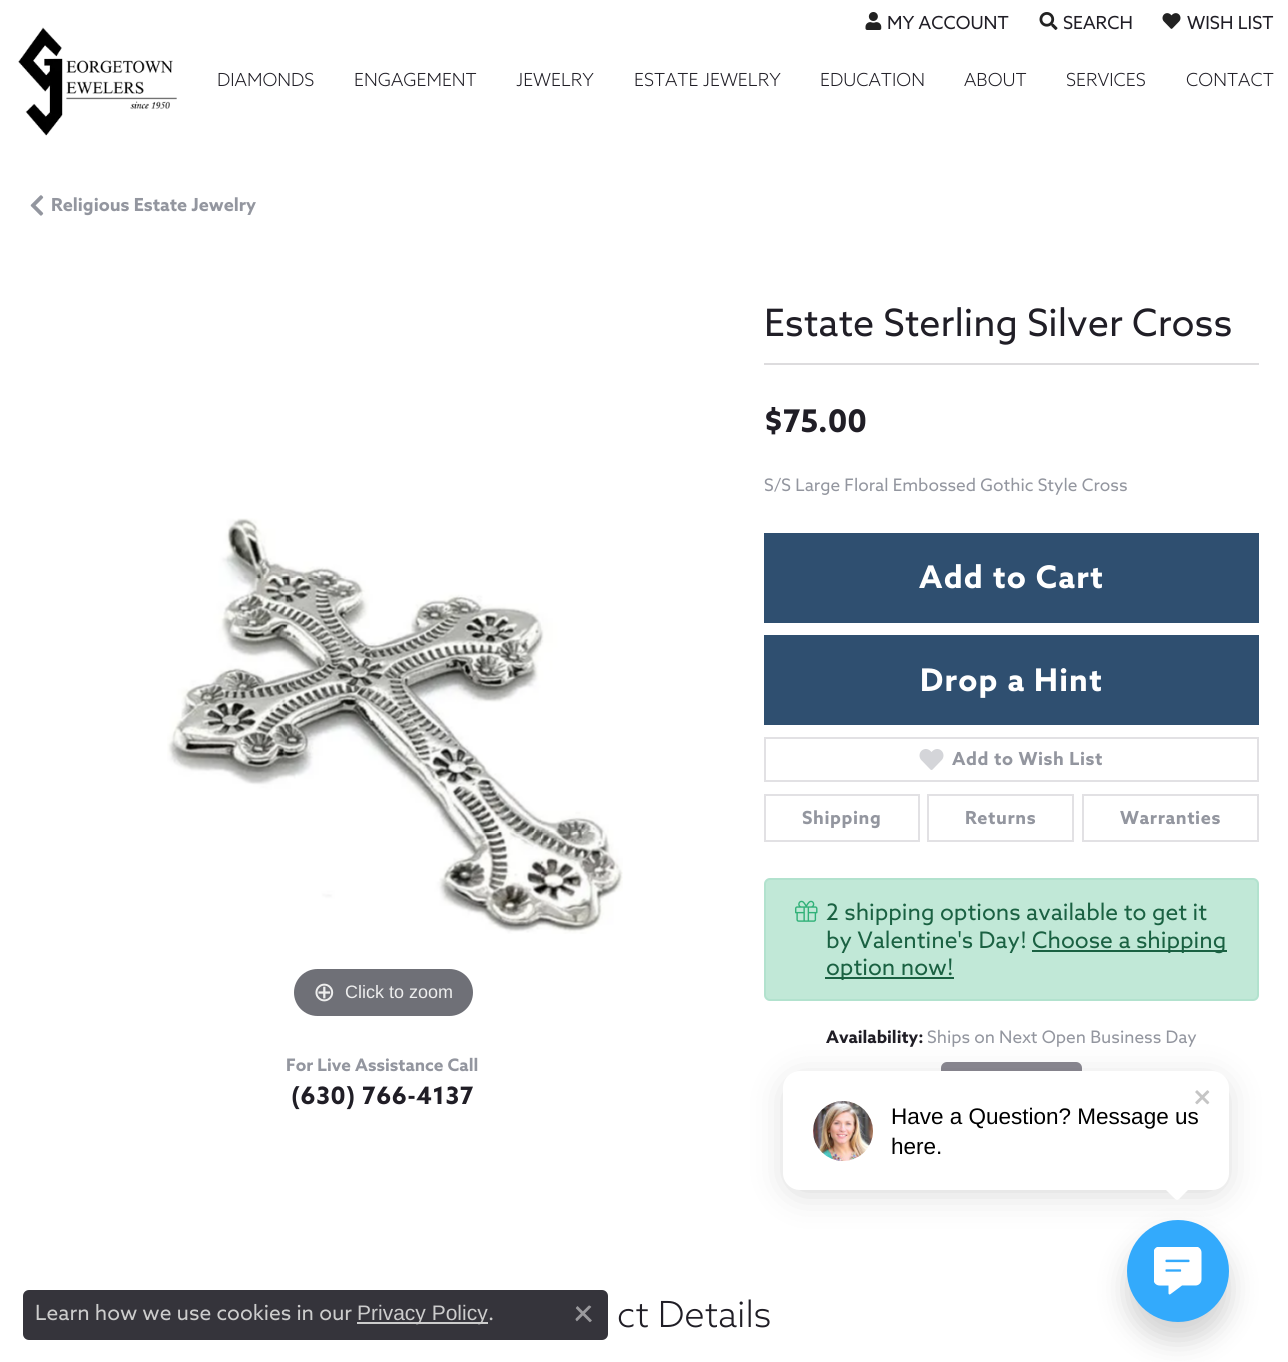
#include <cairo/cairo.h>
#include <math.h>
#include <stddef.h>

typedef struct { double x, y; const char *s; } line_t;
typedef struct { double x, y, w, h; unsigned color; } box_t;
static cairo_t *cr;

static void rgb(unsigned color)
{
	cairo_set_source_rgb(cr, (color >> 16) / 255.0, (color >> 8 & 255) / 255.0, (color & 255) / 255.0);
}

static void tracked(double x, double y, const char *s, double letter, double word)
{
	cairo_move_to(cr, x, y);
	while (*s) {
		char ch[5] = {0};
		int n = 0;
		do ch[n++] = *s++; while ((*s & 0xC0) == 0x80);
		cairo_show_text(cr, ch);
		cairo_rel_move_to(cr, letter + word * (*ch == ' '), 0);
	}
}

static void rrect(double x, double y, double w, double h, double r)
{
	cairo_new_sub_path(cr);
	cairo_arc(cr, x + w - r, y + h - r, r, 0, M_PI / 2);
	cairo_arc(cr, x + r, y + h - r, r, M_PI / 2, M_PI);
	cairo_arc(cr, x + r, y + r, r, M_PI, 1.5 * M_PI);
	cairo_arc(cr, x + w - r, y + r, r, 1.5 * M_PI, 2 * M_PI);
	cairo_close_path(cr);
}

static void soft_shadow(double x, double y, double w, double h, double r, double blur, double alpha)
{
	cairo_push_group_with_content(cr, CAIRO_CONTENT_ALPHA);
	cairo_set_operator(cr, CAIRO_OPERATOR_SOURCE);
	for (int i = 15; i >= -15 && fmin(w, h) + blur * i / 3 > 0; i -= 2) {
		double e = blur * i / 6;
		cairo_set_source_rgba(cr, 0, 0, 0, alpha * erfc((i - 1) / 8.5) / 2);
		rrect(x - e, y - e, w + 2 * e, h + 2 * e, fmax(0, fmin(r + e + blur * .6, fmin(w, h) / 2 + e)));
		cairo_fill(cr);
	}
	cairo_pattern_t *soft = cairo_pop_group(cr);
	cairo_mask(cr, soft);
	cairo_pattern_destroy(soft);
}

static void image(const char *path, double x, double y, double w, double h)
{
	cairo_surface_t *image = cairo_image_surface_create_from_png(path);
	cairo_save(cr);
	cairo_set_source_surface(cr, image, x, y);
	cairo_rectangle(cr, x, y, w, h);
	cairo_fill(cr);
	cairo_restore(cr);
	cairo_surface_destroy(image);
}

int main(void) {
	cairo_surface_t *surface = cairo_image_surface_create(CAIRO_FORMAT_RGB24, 1288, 1362);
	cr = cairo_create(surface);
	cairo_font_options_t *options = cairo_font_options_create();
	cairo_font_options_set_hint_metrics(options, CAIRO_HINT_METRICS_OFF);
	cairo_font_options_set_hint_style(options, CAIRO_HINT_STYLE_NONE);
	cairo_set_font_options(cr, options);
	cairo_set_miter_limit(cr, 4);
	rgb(0xffffff);
	cairo_paint(cr);
	image("img/1.png", 865, 12, 17, 18);
	image("img/2.png", 1039, 12, 19, 18);
	image("img/3.png", 1162, 13, 19, 16);
	image("img/4.png", 18, 27, 159, 109);
	image("img/5.png", 30, 195, 14, 21);
	image("img/6.png", 167, 518, 456, 416);
	rgb(0x6f7077);
	rrect(294, 969, 179, 47, 23.5);
	cairo_fill(cr);
	{
		static const box_t items[] = {
			{764, 363, 495, 2, 0xdddcde},
			{764, 533, 495, 90, 0x2f4f70},
			{764, 635, 495, 90, 0x2f4f70},
		};
		for (size_t i = 0; i < sizeof items / sizeof *items; i++) {
			rgb(items[i].color);
			cairo_rectangle(cr, items[i].x, items[i].y, items[i].w, items[i].h);
			cairo_fill(cr);
		}
	}
	cairo_rectangle(cr, 765, 738, 493, 43);
	rgb(0xe2e1e4);
	cairo_stroke(cr);
	image("img/7.png", 919, 749, 25, 21);
	cairo_rectangle(cr, 765, 795, 154, 46);
	cairo_stroke(cr);
	cairo_rectangle(cr, 928, 795, 145, 46);
	cairo_stroke(cr);
	cairo_rectangle(cr, 1083, 795, 175, 46);
	cairo_stroke(cr);
	rgb(0xc1e8d7);
	rrect(764, 878, 495, 123, 6);
	cairo_fill(cr);
	rrect(765, 879, 493, 121, 5);
	cairo_set_source_rgba(cr, 0.188, 0.694, 0.471, 0.1);
	cairo_stroke(cr);
	image("img/8.png", 795, 900, 23, 22);
	rgb(0x1a6142);
	cairo_rectangle(cr, 1032, 950, 195, 2);
	cairo_fill(cr);
	cairo_rectangle(cr, 825, 977, 129, 2);
	cairo_fill(cr);
	rgb(0x8b8992);
	rrect(941, 1062, 141, 36, 6);
	cairo_fill(cr);
	rgb(0x000000);
	soft_shadow(789, 1083, 434, 107, 11, 18, 0.18);
	rgb(0xffffff);
	rrect(783, 1071, 446, 119, 17);
	cairo_fill(cr);
	image("img/9.png", 1195, 1090, 15, 15);
	image("img/10.png", 813, 1101, 60, 60);
	cairo_set_fill_rule(cr, CAIRO_FILL_RULE_EVEN_ODD);
	cairo_new_path(cr);
	cairo_move_to(cr, 1161, 1185);
	cairo_line_to(cr, 1172.5, 1196.5);
	cairo_curve_to(cr, 1177, 1201, 1177.5, 1201, 1181.5, 1196.5);
	cairo_line_to(cr, 1193, 1185);
	cairo_close_path(cr);
	cairo_fill(cr);
	cairo_set_source_rgba(cr, 0.125, 0.118, 0.149, 0.9);
	rrect(23, 1290, 585, 50, 6);
	cairo_fill(cr);
	rgb(0xcccccc);
	cairo_rectangle(cr, 357, 1322, 131, 2);
	cairo_fill(cr);
	image("img/11.png", 575, 1305, 17, 18);
	rgb(0x000000);
	soft_shadow(1127, 1238, 102, 102, 51, 14, 0.18);
	rgb(0x33aafc);
	cairo_arc(cr, 1178, 1271, 51, 0, 2 * M_PI);
	cairo_fill(cr);
	image("img/12.png", 1154, 1247, 48, 48);
	cairo_select_font_face(cr, "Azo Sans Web", CAIRO_FONT_SLANT_NORMAL, CAIRO_FONT_WEIGHT_NORMAL);
	cairo_set_font_size(cr, 18);
	rgb(0x201e26);
	{
		static const line_t items[] = {
			{887, 29, "MY ACCOUNT"},
			{1063, 29, "SEARCH"},
			{1187, 29, "WISH LIST"},
		};
		for (size_t i = 0; i < sizeof items / sizeof *items; i++) {
			cairo_move_to(cr, items[i].x, items[i].y);
			cairo_show_text(cr, items[i].s);
		}
	}
	cairo_select_font_face(cr, "Azo Sans Web Light", CAIRO_FONT_SLANT_NORMAL, CAIRO_FONT_WEIGHT_NORMAL);
	{
		static const line_t items[] = {
			{217, 86, "DIAMONDS"},
			{354, 86, "ENGAGEMENT"},
			{516, 86, "JEWELRY"},
			{634, 86, "ESTATE JEWELRY"},
			{820, 86, "EDUCATION"},
			{964, 86, "ABOUT"},
			{1066, 86, "SERVICES"},
			{1186, 86, "CONTACT"},
		};
		for (size_t i = 0; i < sizeof items / sizeof *items; i++) {
			cairo_move_to(cr, items[i].x, items[i].y);
			cairo_show_text(cr, items[i].s);
		}
	}
	cairo_select_font_face(cr, "Azo Sans Web", CAIRO_FONT_SLANT_NORMAL, CAIRO_FONT_WEIGHT_BOLD);
	rgb(0x93969f);
	cairo_move_to(cr, 51, 211);
	cairo_show_text(cr, "Religious Estate Jewelry");
	cairo_select_font_face(cr, "DejaVu Sans", CAIRO_FONT_SLANT_NORMAL, CAIRO_FONT_WEIGHT_NORMAL);
	cairo_set_font_size(cr, 27);
	rgb(0xeeeeee);
	cairo_move_to(cr, 313, 1001);
	cairo_show_text(cr, "⊕");
	cairo_select_font_face(cr, "Liberation Sans", CAIRO_FONT_SLANT_NORMAL, CAIRO_FONT_WEIGHT_NORMAL);
	cairo_set_font_size(cr, 18);
	cairo_move_to(cr, 345, 998);
	cairo_show_text(cr, "Click to zoom");
	cairo_select_font_face(cr, "Azo Sans Web", CAIRO_FONT_SLANT_NORMAL, CAIRO_FONT_WEIGHT_BOLD);
	cairo_set_font_size(cr, 17.25);
	rgb(0x93969f);
	cairo_move_to(cr, 286, 1071);
	cairo_show_text(cr, "For Live Assistance Call");
	cairo_set_font_size(cr, 24);
	rgb(0x201e26);
	tracked(291, 1104, "(630) 766-4137", 0.6, 0);
	cairo_select_font_face(cr, "Azo Sans Web", CAIRO_FONT_SLANT_NORMAL, CAIRO_FONT_WEIGHT_NORMAL);
	cairo_set_font_size(cr, 37.75);
	cairo_move_to(cr, 764, 336);
	cairo_show_text(cr, "Estate Sterling Silver Cross");
	cairo_select_font_face(cr, "Azo Sans Web", CAIRO_FONT_SLANT_NORMAL, CAIRO_FONT_WEIGHT_BOLD);
	cairo_set_font_size(cr, 31.25);
	cairo_move_to(cr, 764, 432);
	cairo_show_text(cr, "$75.00");
	cairo_select_font_face(cr, "Azo Sans Web", CAIRO_FONT_SLANT_NORMAL, CAIRO_FONT_WEIGHT_NORMAL);
	cairo_set_font_size(cr, 17.25);
	rgb(0x93969f);
	cairo_move_to(cr, 764, 491);
	cairo_show_text(cr, "S/S Large Floral Embossed Gothic Style Cross");
	cairo_select_font_face(cr, "Azo Sans Web", CAIRO_FONT_SLANT_NORMAL, CAIRO_FONT_WEIGHT_BOLD);
	cairo_set_font_size(cr, 31.25);
	rgb(0xffffff);
	tracked(919, 588, "Add to Cart", 1.25, 0);
	tracked(920, 691, "Drop a Hint", 1.25, 0);
	cairo_set_font_size(cr, 18);
	rgb(0x93969f);
	{
		static const line_t items[] = {
			{952, 765, "Add to Wish List"},
			{802, 824, "Shipping"},
			{965, 824, "Returns"},
			{1120, 824, "Warranties"},
		};
		for (size_t i = 0; i < sizeof items / sizeof *items; i++) {
			tracked(items[i].x, items[i].y, items[i].s, 0.6, 0);
		}
	}
	cairo_select_font_face(cr, "Azo Sans Web", CAIRO_FONT_SLANT_NORMAL, CAIRO_FONT_WEIGHT_NORMAL);
	cairo_set_font_size(cr, 22.75);
	rgb(0x1a6142);
	{
		static const line_t items[] = {
			{826, 920, "2 shipping options available to get it"},
			{826, 948, "by Valentine's Day!"},
			{1032, 948, "Choose a shipping"},
			{826, 975, "option now!"},
		};
		for (size_t i = 0; i < sizeof items / sizeof *items; i++) {
			cairo_move_to(cr, items[i].x, items[i].y);
			cairo_show_text(cr, items[i].s);
		}
	}
	cairo_select_font_face(cr, "Azo Sans Web", CAIRO_FONT_SLANT_NORMAL, CAIRO_FONT_WEIGHT_BOLD);
	cairo_set_font_size(cr, 17.25);
	rgb(0x201e26);
	cairo_move_to(cr, 826, 1043);
	cairo_show_text(cr, "Availability:");
	cairo_select_font_face(cr, "Azo Sans Web", CAIRO_FONT_SLANT_NORMAL, CAIRO_FONT_WEIGHT_NORMAL);
	rgb(0x93969f);
	cairo_move_to(cr, 927, 1043);
	cairo_show_text(cr, "Ships on Next Open Business Day");
	cairo_select_font_face(cr, "Azo Sans Web Light", CAIRO_FONT_SLANT_NORMAL, CAIRO_FONT_WEIGHT_NORMAL);
	cairo_set_font_size(cr, 36);
	rgb(0x201e26);
	cairo_move_to(cr, 617, 1327);
	cairo_show_text(cr, "ct Details");
	cairo_select_font_face(cr, "Liberation Sans", CAIRO_FONT_SLANT_NORMAL, CAIRO_FONT_WEIGHT_NORMAL);
	cairo_set_font_size(cr, 22.5);
	rgb(0x000000);
	cairo_move_to(cr, 891, 1124);
	cairo_show_text(cr, "Have a Question? Message us");
	cairo_move_to(cr, 891, 1154);
	cairo_show_text(cr, "here.");
	cairo_select_font_face(cr, "Azo Sans Web", CAIRO_FONT_SLANT_NORMAL, CAIRO_FONT_WEIGHT_NORMAL);
	cairo_set_font_size(cr, 21);
	rgb(0xcccccc);
	cairo_move_to(cr, 35, 1320);
	cairo_show_text(cr, "Learn how we use cookies in our");
	cairo_select_font_face(cr, "Liberation Sans", CAIRO_FONT_SLANT_NORMAL, CAIRO_FONT_WEIGHT_NORMAL);
	cairo_move_to(cr, 357, 1320);
	cairo_show_text(cr, "Privacy Policy");
	cairo_select_font_face(cr, "Azo Sans Web", CAIRO_FONT_SLANT_NORMAL, CAIRO_FONT_WEIGHT_NORMAL);
	cairo_move_to(cr, 488, 1320);
	cairo_show_text(cr, ".");
	cairo_surface_write_to_png(surface, "page.png");
	cairo_font_options_destroy(options);
	cairo_destroy(cr);
	cairo_surface_destroy(surface);
	return 0;
}
